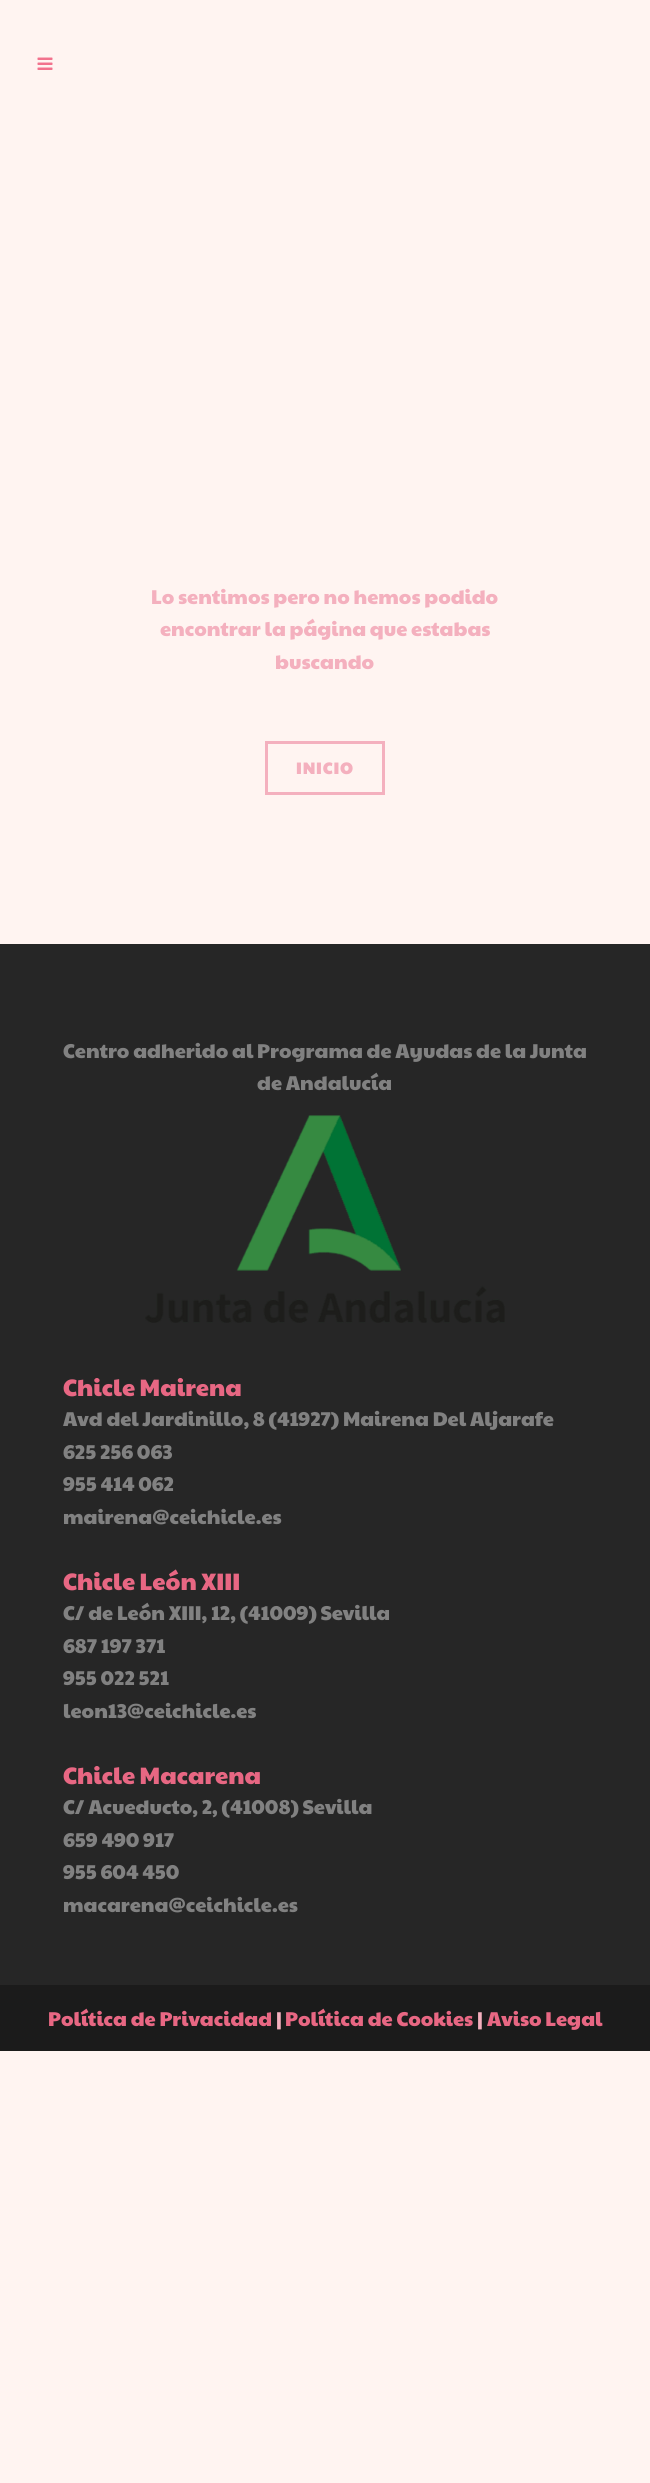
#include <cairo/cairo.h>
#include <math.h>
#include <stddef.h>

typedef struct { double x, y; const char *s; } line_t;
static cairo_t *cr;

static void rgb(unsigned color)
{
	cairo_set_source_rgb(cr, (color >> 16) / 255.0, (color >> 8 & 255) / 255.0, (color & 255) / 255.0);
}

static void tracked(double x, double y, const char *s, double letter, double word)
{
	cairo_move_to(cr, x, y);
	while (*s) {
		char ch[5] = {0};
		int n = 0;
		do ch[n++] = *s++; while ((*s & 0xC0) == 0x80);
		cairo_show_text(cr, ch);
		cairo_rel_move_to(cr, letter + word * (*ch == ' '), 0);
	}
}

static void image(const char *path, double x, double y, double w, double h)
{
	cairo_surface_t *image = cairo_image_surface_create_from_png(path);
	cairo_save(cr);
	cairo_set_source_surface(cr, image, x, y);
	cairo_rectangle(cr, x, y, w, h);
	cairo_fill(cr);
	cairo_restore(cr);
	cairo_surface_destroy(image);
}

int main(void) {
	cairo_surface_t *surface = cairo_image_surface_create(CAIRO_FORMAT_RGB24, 650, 2483);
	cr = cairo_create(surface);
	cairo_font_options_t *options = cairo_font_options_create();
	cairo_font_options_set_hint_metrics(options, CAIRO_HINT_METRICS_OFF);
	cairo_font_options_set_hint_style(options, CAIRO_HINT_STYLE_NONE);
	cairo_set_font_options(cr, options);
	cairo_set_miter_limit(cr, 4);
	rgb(0xfff4f1);
	cairo_paint(cr);
	image("img/1.png", 37, 57, 16, 13);
	cairo_rectangle(cr, 266.5, 742.5, 117, 51);
	rgb(0xf4b0be);
	cairo_set_line_width(cr, 3);
	cairo_stroke(cr);
	rgb(0x262626);
	cairo_rectangle(cr, 0, 944, 650, 1041);
	cairo_fill(cr);
	image("img/2.png", 145, 1115, 360, 208);
	rgb(0x1b1b1b);
	cairo_rectangle(cr, 0, 1985, 650, 66);
	cairo_fill(cr);
	cairo_select_font_face(cr, "Paytone One", CAIRO_FONT_SLANT_NORMAL, CAIRO_FONT_WEIGHT_NORMAL);
	cairo_set_font_size(cr, 20);
	rgb(0xf4b0be);
	{
		static const line_t items[] = {
			{151, 604, "Lo sentimos pero no hemos podido"},
			{160, 636, "encontrar la página que estabas"},
			{275, 669, "buscando"},
		};
		for (size_t i = 0; i < sizeof items / sizeof *items; i++) {
			cairo_move_to(cr, items[i].x, items[i].y);
			cairo_show_text(cr, items[i].s);
		}
	}
	cairo_select_font_face(cr, "Paytone One", CAIRO_FONT_SLANT_NORMAL, CAIRO_FONT_WEIGHT_BOLD);
	cairo_set_font_size(cr, 16);
	tracked(296, 774, "INICIO", 1.25, 0);
	cairo_select_font_face(cr, "Paytone One", CAIRO_FONT_SLANT_NORMAL, CAIRO_FONT_WEIGHT_NORMAL);
	cairo_set_font_size(cr, 20);
	rgb(0x818181);
	cairo_move_to(cr, 63, 1058);
	cairo_show_text(cr, "Centro adherido al Programa de Ayudas de la Junta");
	cairo_move_to(cr, 257, 1090);
	cairo_show_text(cr, "de Andalucía");
	cairo_set_font_size(cr, 23.75);
	rgb(0xe86783);
	cairo_move_to(cr, 63, 1396);
	cairo_show_text(cr, "Chicle Mairena");
	cairo_set_font_size(cr, 20);
	rgb(0x818181);
	{
		static const line_t items[] = {
			{63, 1426, "Avd del Jardinillo, 8 (41927) Mairena Del Aljarafe"},
			{63, 1459, "625 256 063"},
			{63, 1491, "955 414 062"},
			{63, 1524, "mairena@ceichicle.es"},
		};
		for (size_t i = 0; i < sizeof items / sizeof *items; i++) {
			cairo_move_to(cr, items[i].x, items[i].y);
			cairo_show_text(cr, items[i].s);
		}
	}
	cairo_set_font_size(cr, 23.75);
	rgb(0xe86783);
	cairo_move_to(cr, 63, 1590);
	cairo_show_text(cr, "Chicle León XIII");
	cairo_set_font_size(cr, 20);
	rgb(0x818181);
	{
		static const line_t items[] = {
			{63, 1620, "C/ de León XIII, 12, (41009) Sevilla"},
			{63, 1653, "687 197 371"},
			{63, 1685, "955 022 521"},
			{63, 1718, "leon13@ceichicle.es"},
		};
		for (size_t i = 0; i < sizeof items / sizeof *items; i++) {
			cairo_move_to(cr, items[i].x, items[i].y);
			cairo_show_text(cr, items[i].s);
		}
	}
	cairo_set_font_size(cr, 23.75);
	rgb(0xe86783);
	cairo_move_to(cr, 63, 1784);
	cairo_show_text(cr, "Chicle Macarena");
	cairo_set_font_size(cr, 20);
	rgb(0x818181);
	{
		static const line_t items[] = {
			{63, 1814, "C/ Acueducto, 2, (41008) Sevilla"},
			{63, 1847, "659 490 917"},
			{63, 1879, "955 604 450"},
			{63, 1912, "macarena@ceichicle.es"},
		};
		for (size_t i = 0; i < sizeof items / sizeof *items; i++) {
			cairo_move_to(cr, items[i].x, items[i].y);
			cairo_show_text(cr, items[i].s);
		}
	}
	rgb(0xe86783);
	cairo_move_to(cr, 48, 2026);
	cairo_show_text(cr, "Política de Privacidad");
	rgb(0xf4b0be);
	cairo_move_to(cr, 276, 2026);
	cairo_show_text(cr, "|");
	rgb(0xe86783);
	cairo_move_to(cr, 285, 2026);
	cairo_show_text(cr, "Política de Cookies");
	rgb(0xf4b0be);
	cairo_move_to(cr, 477, 2026);
	cairo_show_text(cr, "|");
	rgb(0xe86783);
	cairo_move_to(cr, 487, 2026);
	cairo_show_text(cr, "Aviso Legal");
	cairo_surface_write_to_png(surface, "page.png");
	cairo_font_options_destroy(options);
	cairo_destroy(cr);
	cairo_surface_destroy(surface);
	return 0;
}
